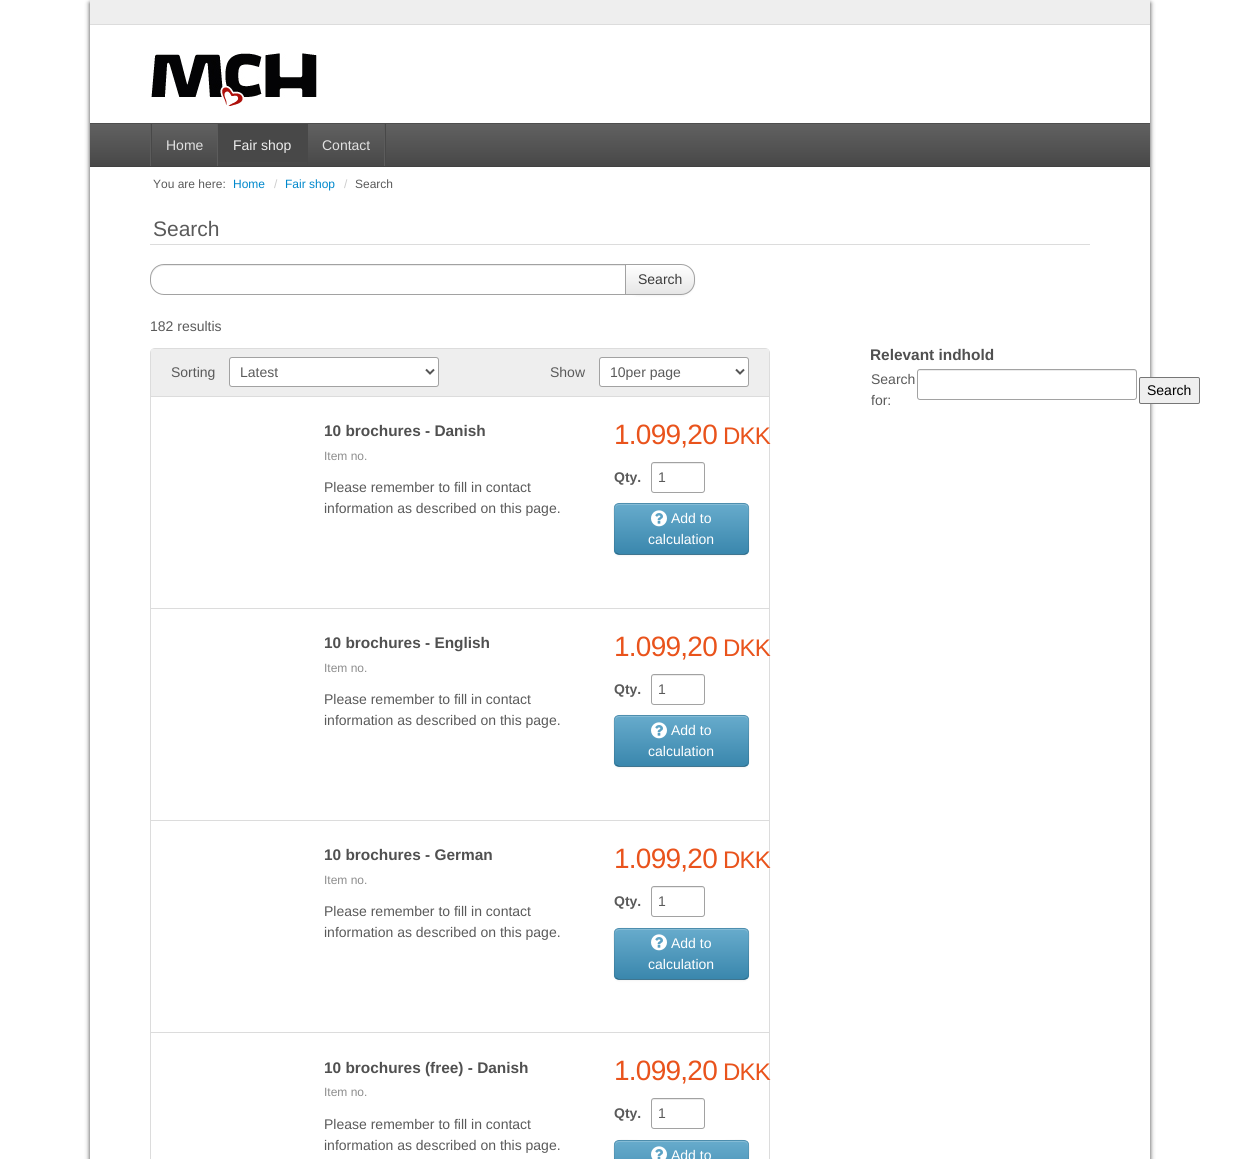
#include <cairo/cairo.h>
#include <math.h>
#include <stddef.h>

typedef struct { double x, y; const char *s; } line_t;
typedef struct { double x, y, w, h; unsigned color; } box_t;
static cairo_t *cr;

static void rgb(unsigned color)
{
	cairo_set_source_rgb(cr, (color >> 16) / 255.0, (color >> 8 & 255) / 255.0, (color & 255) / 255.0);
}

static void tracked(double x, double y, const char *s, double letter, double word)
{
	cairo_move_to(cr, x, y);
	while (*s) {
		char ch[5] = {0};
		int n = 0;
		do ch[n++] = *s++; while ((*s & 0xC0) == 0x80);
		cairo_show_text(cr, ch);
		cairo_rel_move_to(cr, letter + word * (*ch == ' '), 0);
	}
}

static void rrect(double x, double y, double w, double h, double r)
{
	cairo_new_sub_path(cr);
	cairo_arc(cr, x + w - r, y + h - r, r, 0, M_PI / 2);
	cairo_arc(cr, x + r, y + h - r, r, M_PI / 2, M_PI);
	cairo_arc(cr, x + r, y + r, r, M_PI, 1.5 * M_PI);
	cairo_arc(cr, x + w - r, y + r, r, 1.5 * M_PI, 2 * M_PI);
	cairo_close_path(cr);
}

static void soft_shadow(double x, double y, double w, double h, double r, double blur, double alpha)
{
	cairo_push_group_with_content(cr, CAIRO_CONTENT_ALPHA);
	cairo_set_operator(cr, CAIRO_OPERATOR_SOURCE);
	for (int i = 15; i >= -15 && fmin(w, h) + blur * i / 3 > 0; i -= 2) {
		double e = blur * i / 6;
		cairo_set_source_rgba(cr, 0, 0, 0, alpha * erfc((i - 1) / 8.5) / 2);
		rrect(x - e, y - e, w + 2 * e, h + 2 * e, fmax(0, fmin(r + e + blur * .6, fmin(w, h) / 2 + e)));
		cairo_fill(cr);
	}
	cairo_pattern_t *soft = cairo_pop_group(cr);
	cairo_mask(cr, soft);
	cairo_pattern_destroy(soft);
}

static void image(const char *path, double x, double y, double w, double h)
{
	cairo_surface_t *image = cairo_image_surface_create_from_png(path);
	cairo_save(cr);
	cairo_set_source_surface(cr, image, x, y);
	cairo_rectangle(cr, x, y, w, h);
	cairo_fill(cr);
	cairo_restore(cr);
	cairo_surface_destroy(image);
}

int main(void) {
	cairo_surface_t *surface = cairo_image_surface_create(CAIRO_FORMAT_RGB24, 1240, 1159);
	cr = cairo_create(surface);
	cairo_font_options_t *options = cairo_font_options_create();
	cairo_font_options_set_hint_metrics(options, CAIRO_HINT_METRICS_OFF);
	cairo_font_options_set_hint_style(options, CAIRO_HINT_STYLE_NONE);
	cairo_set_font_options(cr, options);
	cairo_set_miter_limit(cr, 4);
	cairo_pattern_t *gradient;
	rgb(0xffffff);
	cairo_paint(cr);
	cairo_save(cr);
	cairo_set_fill_rule(cr, CAIRO_FILL_RULE_EVEN_ODD);
	cairo_new_path(cr);
	cairo_move_to(cr, 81, 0);
	cairo_line_to(cr, 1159, 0);
	cairo_line_to(cr, 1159, 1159);
	cairo_line_to(cr, 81, 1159);
	cairo_close_path(cr);
	cairo_move_to(cr, 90, 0);
	cairo_line_to(cr, 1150, 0);
	cairo_line_to(cr, 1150, 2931);
	cairo_line_to(cr, 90, 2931);
	cairo_close_path(cr);
	cairo_clip(cr);
	rgb(0x000000);
	soft_shadow(90, 3, 1060, 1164, 0, 2.5, 0.75);
	cairo_restore(cr);
	rgb(0xeeeeee);
	cairo_rectangle(cr, 90, 0, 1060, 24);
	cairo_fill(cr);
	rgb(0xdcdcdc);
	cairo_rectangle(cr, 90, 24, 1060, 1);
	cairo_fill(cr);
	image("img/1.png", 151, 53, 166, 53);
	gradient = cairo_pattern_create_linear(620, 124, 620, 166);
	cairo_pattern_add_color_stop_rgba(gradient, 0, 0.38, 0.38, 0.38, 1);
	cairo_pattern_add_color_stop_rgba(gradient, 1, 0.282, 0.282, 0.282, 1);
	cairo_set_source(cr, gradient);
	cairo_pattern_destroy(gradient);
	cairo_rectangle(cr, 90, 124, 1060, 42);
	cairo_fill(cr);
	{
		static const box_t items[] = {
			{90, 123, 1060, 1, 0x4e4e4e},
			{90, 166, 1060, 1, 0x414141},
			{150, 124, 1, 42, 0x5c5c5c},
			{217, 124, 1, 42, 0x5c5c5c},
			{151, 124, 1, 42, 0x484848},
			{218, 124, 89, 38, 0x484848},
			{385, 124, 1, 42, 0x484848},
			{384, 124, 1, 42, 0x5c5c5c},
			{307, 124, 1, 42, 0x484848},
			{150, 244, 940, 1, 0xdcdcdc},
		};
		for (size_t i = 0; i < sizeof items / sizeof *items; i++) {
			rgb(items[i].color);
			cairo_rectangle(cr, items[i].x, items[i].y, items[i].w, items[i].h);
			cairo_fill(cr);
		}
	}
	rgb(0x000000);
	soft_shadow(625, 265, 70, 31, 14, 1, 0.05);
	cairo_save(cr);
	cairo_new_path(cr);
	cairo_move_to(cr, 625, 264);
	cairo_line_to(cr, 681, 264);
	cairo_curve_to(cr, 688.5, 264, 695, 270.5, 695, 278);
	cairo_line_to(cr, 695, 281);
	cairo_curve_to(cr, 695, 288.5, 688.5, 295, 681, 295);
	cairo_line_to(cr, 625, 295);
	cairo_close_path(cr);
	cairo_clip(cr);
	gradient = cairo_pattern_create_linear(660, 265, 660, 294);
	cairo_pattern_add_color_stop_rgba(gradient, 0, 1, 1, 1, 1);
	cairo_pattern_add_color_stop_rgba(gradient, 1, 0.902, 0.902, 0.902, 1);
	cairo_set_source(cr, gradient);
	cairo_pattern_destroy(gradient);
	cairo_rectangle(cr, 626, 265, 69, 29);
	cairo_fill(cr);
	cairo_restore(cr);
	cairo_new_path(cr);
	cairo_move_to(cr, 625.5, 264.5);
	cairo_line_to(cr, 681, 264.5);
	cairo_curve_to(cr, 688.5, 264.5, 694.5, 270.5, 694.5, 278);
	cairo_line_to(cr, 694.5, 281);
	cairo_curve_to(cr, 694.5, 288.5, 688.5, 294.5, 681, 294.5);
	cairo_line_to(cr, 625.5, 294.5);
	cairo_close_path(cr);
	rgb(0xa2a2a2);
	cairo_set_line_width(cr, 1);
	cairo_stroke(cr);
	rgb(0xffffff);
	cairo_new_path(cr);
	cairo_move_to(cr, 164, 264);
	cairo_line_to(cr, 626, 264);
	cairo_line_to(cr, 626, 295);
	cairo_line_to(cr, 164, 295);
	cairo_curve_to(cr, 156.5, 295, 150, 288.5, 150, 281);
	cairo_line_to(cr, 150, 278);
	cairo_curve_to(cr, 150, 270.5, 156.5, 264, 164, 264);
	cairo_close_path(cr);
	cairo_fill(cr);
	rgb(0xececec);
	cairo_new_path(cr);
	cairo_move_to(cr, 164, 266);
	cairo_line_to(cr, 625, 266);
	cairo_line_to(cr, 625, 265);
	cairo_line_to(cr, 164, 265);
	cairo_curve_to(cr, 157, 265, 151, 271, 151, 278);
	cairo_line_to(cr, 151, 279);
	cairo_curve_to(cr, 152, 272, 156, 266, 164, 266);
	cairo_close_path(cr);
	cairo_fill(cr);
	cairo_new_path(cr);
	cairo_move_to(cr, 164, 264.5);
	cairo_line_to(cr, 625.5, 264.5);
	cairo_line_to(cr, 625.5, 294.5);
	cairo_line_to(cr, 164, 294.5);
	cairo_curve_to(cr, 156.5, 294.5, 150.5, 288.5, 150.5, 281);
	cairo_line_to(cr, 150.5, 278);
	cairo_curve_to(cr, 150.5, 270.5, 156.5, 264.5, 164, 264.5);
	cairo_close_path(cr);
	rgb(0xa2a2a2);
	cairo_stroke(cr);
	rrect(150.5, 348.5, 619, 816, 4.5);
	rgb(0xdcdcdc);
	cairo_stroke(cr);
	rgb(0xeeeeee);
	cairo_rectangle(cr, 151, 349, 618, 47);
	cairo_fill(cr);
	rgb(0xdcdcdc);
	cairo_rectangle(cr, 151, 396, 618, 1);
	cairo_fill(cr);
	rgb(0xffffff);
	rrect(229.5, 357.5, 209, 29, 2.5);
	cairo_fill_preserve(cr);
	rgb(0xa2a2a2);
	cairo_stroke(cr);
	cairo_new_path(cr);
	cairo_move_to(cr, 426, 369.5);
	cairo_line_to(cr, 430, 373.5);
	cairo_line_to(cr, 434, 369.5);
	rgb(0x555555);
	cairo_set_line_width(cr, 2);
	cairo_stroke(cr);
	rgb(0xffffff);
	rrect(599.5, 357.5, 149, 29, 2.5);
	cairo_fill_preserve(cr);
	rgb(0xa2a2a2);
	cairo_set_line_width(cr, 1);
	cairo_stroke(cr);
	cairo_new_path(cr);
	cairo_move_to(cr, 736, 369.5);
	cairo_line_to(cr, 740, 373.5);
	cairo_line_to(cr, 744, 369.5);
	rgb(0x555555);
	cairo_set_line_width(cr, 2);
	cairo_stroke(cr);
	rgb(0xececec);
	cairo_new_path(cr);
	cairo_move_to(cr, 654, 464);
	cairo_line_to(cr, 702, 464);
	cairo_curve_to(cr, 703, 464, 704, 465, 704, 466);
	cairo_curve_to(cr, 704, 461, 698, 463, 694, 463);
	cairo_line_to(cr, 662, 463);
	cairo_curve_to(cr, 658, 463, 652, 461, 652, 466);
	cairo_curve_to(cr, 652, 465, 653, 464, 654, 464);
	cairo_close_path(cr);
	cairo_fill(cr);
	rrect(651.5, 462.5, 53, 30, 2.5);
	rgb(0xa2a2a2);
	cairo_set_line_width(cr, 1);
	cairo_stroke(cr);
	rgb(0x000000);
	soft_shadow(614, 504, 135, 52, 5, 1, 0.05);
	rgb(0x559cbf);
	rrect(614, 503, 135, 52, 5);
	cairo_fill(cr);
	cairo_save(cr);
	rrect(614, 503, 135, 52, 5);
	cairo_clip(cr);
	gradient = cairo_pattern_create_linear(682, 504, 682, 554);
	cairo_pattern_add_color_stop_rgba(gradient, 0, 0.404, 0.671, 0.8, 1);
	cairo_pattern_add_color_stop_rgba(gradient, 1, 0.227, 0.529, 0.678, 1);
	cairo_set_source(cr, gradient);
	cairo_pattern_destroy(gradient);
	cairo_rectangle(cr, 614, 504, 135, 50);
	cairo_fill(cr);
	cairo_restore(cr);
	rgb(0x85bcd6);
	cairo_new_path(cr);
	cairo_move_to(cr, 619, 505);
	cairo_line_to(cr, 744, 505);
	cairo_curve_to(cr, 746, 505, 748, 507, 748, 509);
	cairo_line_to(cr, 748, 508);
	cairo_curve_to(cr, 748, 506, 746, 504, 744, 504);
	cairo_line_to(cr, 619, 504);
	cairo_curve_to(cr, 617, 504, 615, 506, 615, 508);
	cairo_line_to(cr, 615, 509);
	cairo_curve_to(cr, 615, 507, 617, 505, 619, 505);
	cairo_close_path(cr);
	cairo_fill(cr);
	cairo_new_path(cr);
	cairo_move_to(cr, 747, 553);
	cairo_line_to(cr, 744.5, 554.5);
	cairo_line_to(cr, 640, 554.5);
	cairo_line_to(cr, 619, 554.5);
	cairo_line_to(cr, 616, 553);
	cairo_set_source_rgba(cr, 0, 0, 0, 0.25);
	cairo_stroke(cr);
	cairo_new_path(cr);
	cairo_move_to(cr, 616, 553);
	cairo_curve_to(cr, 613.5, 551, 614.5, 545.5, 614.5, 543);
	cairo_line_to(cr, 614.5, 529);
	cairo_curve_to(cr, 614.5, 499, 609, 503.5, 640, 503.5);
	cairo_line_to(cr, 723, 503.5);
	cairo_curve_to(cr, 754, 503.5, 748.5, 499, 748.5, 529);
	cairo_line_to(cr, 748.5, 543);
	cairo_curve_to(cr, 748.5, 545.5, 749.5, 551, 747, 553);
	cairo_set_source_rgba(cr, 0, 0, 0, 0.1);
	cairo_stroke(cr);
	image("img/2.png", 651, 510, 16, 17);
	rgb(0xdcdcdc);
	cairo_rectangle(cr, 151, 608, 618, 1);
	cairo_fill(cr);
	rgb(0xececec);
	cairo_new_path(cr);
	cairo_move_to(cr, 654, 676);
	cairo_line_to(cr, 702, 676);
	cairo_curve_to(cr, 703, 676, 704, 677, 704, 678);
	cairo_curve_to(cr, 704, 673, 698, 675, 694, 675);
	cairo_line_to(cr, 662, 675);
	cairo_curve_to(cr, 658, 675, 652, 673, 652, 678);
	cairo_curve_to(cr, 652, 677, 653, 676, 654, 676);
	cairo_close_path(cr);
	cairo_fill(cr);
	rrect(651.5, 674.5, 53, 30, 2.5);
	rgb(0xa2a2a2);
	cairo_stroke(cr);
	rgb(0x000000);
	soft_shadow(614, 716, 135, 52, 5, 1, 0.05);
	rgb(0x559cbf);
	rrect(614, 715, 135, 52, 5);
	cairo_fill(cr);
	cairo_save(cr);
	rrect(614, 715, 135, 52, 5);
	cairo_clip(cr);
	gradient = cairo_pattern_create_linear(682, 716, 682, 766);
	cairo_pattern_add_color_stop_rgba(gradient, 0, 0.404, 0.671, 0.8, 1);
	cairo_pattern_add_color_stop_rgba(gradient, 1, 0.227, 0.529, 0.678, 1);
	cairo_set_source(cr, gradient);
	cairo_pattern_destroy(gradient);
	cairo_rectangle(cr, 614, 716, 135, 50);
	cairo_fill(cr);
	cairo_restore(cr);
	rgb(0x85bcd6);
	cairo_new_path(cr);
	cairo_move_to(cr, 619, 717);
	cairo_line_to(cr, 744, 717);
	cairo_curve_to(cr, 746, 717, 748, 719, 748, 721);
	cairo_line_to(cr, 748, 720);
	cairo_curve_to(cr, 748, 718, 746, 716, 744, 716);
	cairo_line_to(cr, 619, 716);
	cairo_curve_to(cr, 617, 716, 615, 718, 615, 720);
	cairo_line_to(cr, 615, 721);
	cairo_curve_to(cr, 615, 719, 617, 717, 619, 717);
	cairo_close_path(cr);
	cairo_fill(cr);
	cairo_new_path(cr);
	cairo_move_to(cr, 747, 765);
	cairo_line_to(cr, 744.5, 766.5);
	cairo_line_to(cr, 640, 766.5);
	cairo_line_to(cr, 619, 766.5);
	cairo_line_to(cr, 616, 765);
	cairo_set_source_rgba(cr, 0, 0, 0, 0.25);
	cairo_stroke(cr);
	cairo_new_path(cr);
	cairo_move_to(cr, 616, 765);
	cairo_curve_to(cr, 613.5, 763, 614.5, 757.5, 614.5, 755);
	cairo_line_to(cr, 614.5, 741);
	cairo_curve_to(cr, 614.5, 711, 609, 715.5, 640, 715.5);
	cairo_line_to(cr, 723, 715.5);
	cairo_curve_to(cr, 754, 715.5, 748.5, 711, 748.5, 741);
	cairo_line_to(cr, 748.5, 755);
	cairo_curve_to(cr, 748.5, 757.5, 749.5, 763, 747, 765);
	cairo_set_source_rgba(cr, 0, 0, 0, 0.1);
	cairo_stroke(cr);
	image("img/2.png", 651, 722, 16, 17);
	rgb(0xdcdcdc);
	cairo_rectangle(cr, 151, 820, 618, 1);
	cairo_fill(cr);
	rgb(0xececec);
	cairo_new_path(cr);
	cairo_move_to(cr, 654, 888);
	cairo_line_to(cr, 702, 888);
	cairo_curve_to(cr, 703, 888, 704, 889, 704, 890);
	cairo_curve_to(cr, 704, 885, 698, 887, 694, 887);
	cairo_line_to(cr, 662, 887);
	cairo_curve_to(cr, 658, 887, 652, 885, 652, 890);
	cairo_curve_to(cr, 652, 889, 653, 888, 654, 888);
	cairo_close_path(cr);
	cairo_fill(cr);
	rrect(651.5, 886.5, 53, 30, 2.5);
	rgb(0xa2a2a2);
	cairo_stroke(cr);
	rgb(0x000000);
	soft_shadow(614, 929, 135, 52, 5, 1, 0.05);
	rgb(0x559cbf);
	rrect(614, 928, 135, 52, 5);
	cairo_fill(cr);
	cairo_save(cr);
	rrect(614, 928, 135, 52, 5);
	cairo_clip(cr);
	gradient = cairo_pattern_create_linear(682, 929, 682, 979);
	cairo_pattern_add_color_stop_rgba(gradient, 0, 0.404, 0.671, 0.8, 1);
	cairo_pattern_add_color_stop_rgba(gradient, 1, 0.227, 0.529, 0.678, 1);
	cairo_set_source(cr, gradient);
	cairo_pattern_destroy(gradient);
	cairo_rectangle(cr, 614, 929, 135, 50);
	cairo_fill(cr);
	cairo_restore(cr);
	rgb(0x85bcd6);
	cairo_new_path(cr);
	cairo_move_to(cr, 619, 930);
	cairo_line_to(cr, 744, 930);
	cairo_curve_to(cr, 746, 930, 748, 932, 748, 934);
	cairo_line_to(cr, 748, 933);
	cairo_curve_to(cr, 748, 931, 746, 929, 744, 929);
	cairo_line_to(cr, 619, 929);
	cairo_curve_to(cr, 617, 929, 615, 931, 615, 933);
	cairo_line_to(cr, 615, 934);
	cairo_curve_to(cr, 615, 932, 617, 930, 619, 930);
	cairo_close_path(cr);
	cairo_fill(cr);
	cairo_new_path(cr);
	cairo_move_to(cr, 747, 978);
	cairo_line_to(cr, 744, 979.5);
	cairo_line_to(cr, 618.5, 979.5);
	cairo_line_to(cr, 616, 978);
	cairo_set_source_rgba(cr, 0, 0, 0, 0.25);
	cairo_stroke(cr);
	cairo_new_path(cr);
	cairo_move_to(cr, 616, 978);
	cairo_curve_to(cr, 613.5, 976, 614.5, 970.5, 614.5, 968);
	cairo_line_to(cr, 614.5, 954);
	cairo_curve_to(cr, 614.5, 924, 609, 928.5, 640, 928.5);
	cairo_line_to(cr, 723, 928.5);
	cairo_curve_to(cr, 754, 928.5, 748.5, 924, 748.5, 954);
	cairo_line_to(cr, 748.5, 968);
	cairo_curve_to(cr, 748.5, 970.5, 749.5, 976, 747, 978);
	cairo_set_source_rgba(cr, 0, 0, 0, 0.1);
	cairo_stroke(cr);
	image("img/3.png", 651, 934, 16, 17);
	rgb(0xdcdcdc);
	cairo_rectangle(cr, 151, 1032, 618, 1);
	cairo_fill(cr);
	rgb(0xececec);
	cairo_new_path(cr);
	cairo_move_to(cr, 654, 1100);
	cairo_line_to(cr, 702, 1100);
	cairo_curve_to(cr, 703, 1100, 704, 1101, 704, 1102);
	cairo_curve_to(cr, 704, 1097, 698, 1099, 694, 1099);
	cairo_line_to(cr, 662, 1099);
	cairo_curve_to(cr, 658, 1099, 652, 1097, 652, 1102);
	cairo_curve_to(cr, 652, 1101, 653, 1100, 654, 1100);
	cairo_close_path(cr);
	cairo_fill(cr);
	rrect(651.5, 1098.5, 53, 30, 2.5);
	rgb(0xa2a2a2);
	cairo_stroke(cr);
	rgb(0x559cbf);
	rrect(614, 1140, 135, 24, 5);
	cairo_fill(cr);
	cairo_save(cr);
	rrect(614, 1140, 135, 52, 5);
	cairo_clip(cr);
	gradient = cairo_pattern_create_linear(682, 1141, 682, 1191);
	cairo_pattern_add_color_stop_rgba(gradient, 0, 0.404, 0.671, 0.8, 1);
	cairo_pattern_add_color_stop_rgba(gradient, 1, 0.227, 0.529, 0.678, 1);
	cairo_set_source(cr, gradient);
	cairo_pattern_destroy(gradient);
	cairo_rectangle(cr, 614, 1141, 135, 18);
	cairo_fill(cr);
	cairo_restore(cr);
	rgb(0x85bcd6);
	cairo_new_path(cr);
	cairo_move_to(cr, 619, 1142);
	cairo_line_to(cr, 744, 1142);
	cairo_curve_to(cr, 746, 1142, 748, 1144, 748, 1146);
	cairo_line_to(cr, 748, 1145);
	cairo_curve_to(cr, 748, 1143, 746, 1141, 744, 1141);
	cairo_line_to(cr, 619, 1141);
	cairo_curve_to(cr, 617, 1141, 615, 1143, 615, 1145);
	cairo_line_to(cr, 615, 1146);
	cairo_curve_to(cr, 615, 1144, 617, 1142, 619, 1142);
	cairo_close_path(cr);
	cairo_fill(cr);
	cairo_new_path(cr);
	cairo_move_to(cr, 616, 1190);
	cairo_curve_to(cr, 613.5, 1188, 614.5, 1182.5, 614.5, 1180);
	cairo_line_to(cr, 614.5, 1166);
	cairo_curve_to(cr, 614.5, 1136, 609, 1140.5, 640, 1140.5);
	cairo_line_to(cr, 723, 1140.5);
	cairo_curve_to(cr, 754, 1140.5, 748.5, 1136, 748.5, 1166);
	cairo_line_to(cr, 748.5, 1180);
	cairo_curve_to(cr, 748.5, 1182.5, 749.5, 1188, 747, 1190);
	cairo_set_source_rgba(cr, 0, 0, 0, 0.1);
	cairo_stroke(cr);
	image("img/4.png", 651, 1146, 16, 13);
	rgb(0xececec);
	cairo_new_path(cr);
	cairo_move_to(cr, 920, 371);
	cairo_line_to(cr, 1134, 371);
	cairo_curve_to(cr, 1135, 371, 1136, 372, 1136, 373);
	cairo_curve_to(cr, 1136, 372, 1136, 370, 1134, 370);
	cairo_line_to(cr, 920, 370);
	cairo_line_to(cr, 919, 371);
	cairo_line_to(cr, 918, 373);
	cairo_curve_to(cr, 918, 372, 919, 371, 920, 371);
	cairo_close_path(cr);
	cairo_fill(cr);
	rrect(917.5, 369.5, 219, 30, 2.5);
	rgb(0xa2a2a2);
	cairo_stroke(cr);
	rgb(0xefefef);
	rrect(1139.5, 377.5, 60, 26, 1.5);
	cairo_fill_preserve(cr);
	rgb(0x767676);
	cairo_stroke(cr);
	cairo_select_font_face(cr, "Liberation Sans", CAIRO_FONT_SLANT_NORMAL, CAIRO_FONT_WEIGHT_NORMAL);
	cairo_set_font_size(cr, 14);
	rgb(0xe1e1e1);
	cairo_move_to(cr, 166, 150);
	cairo_show_text(cr, "Home");
	rgb(0xeeeeee);
	cairo_move_to(cr, 233, 150);
	cairo_show_text(cr, "Fair shop");
	rgb(0xe1e1e1);
	cairo_move_to(cr, 322, 150);
	cairo_show_text(cr, "Contact");
	cairo_set_font_size(cr, 12);
	rgb(0x5a5a5a);
	cairo_move_to(cr, 153, 188);
	cairo_show_text(cr, "You are here:");
	rgb(0x0088cc);
	cairo_move_to(cr, 233, 188);
	cairo_show_text(cr, "Home");
	rgb(0xcccccc);
	cairo_move_to(cr, 274, 188);
	cairo_show_text(cr, "/");
	rgb(0x0088cc);
	cairo_move_to(cr, 285, 188);
	cairo_show_text(cr, "Fair shop");
	rgb(0xcccccc);
	cairo_move_to(cr, 344, 188);
	cairo_show_text(cr, "/");
	rgb(0x5a5a5a);
	cairo_move_to(cr, 355, 188);
	cairo_show_text(cr, "Search");
	cairo_set_font_size(cr, 21);
	cairo_move_to(cr, 153, 236);
	cairo_show_text(cr, "Search");
	cairo_set_font_size(cr, 14);
	rgb(0x3b3b3b);
	cairo_move_to(cr, 638, 284);
	cairo_show_text(cr, "Search");
	rgb(0x5a5a5a);
	{
		static const line_t items[] = {
			{150, 331, "182 resultis"},
			{171, 377, "Sorting"},
			{240, 377, "Latest"},
			{550, 377, "Show"},
			{610, 377, "10per page"},
		};
		for (size_t i = 0; i < sizeof items / sizeof *items; i++) {
			cairo_move_to(cr, items[i].x, items[i].y);
			cairo_show_text(cr, items[i].s);
		}
	}
	cairo_select_font_face(cr, "Liberation Sans", CAIRO_FONT_SLANT_NORMAL, CAIRO_FONT_WEIGHT_BOLD);
	cairo_set_font_size(cr, 15.4);
	rgb(0x505050);
	cairo_move_to(cr, 324, 436);
	cairo_show_text(cr, "10 brochures - Danish");
	cairo_select_font_face(cr, "Liberation Sans", CAIRO_FONT_SLANT_NORMAL, CAIRO_FONT_WEIGHT_NORMAL);
	cairo_set_font_size(cr, 12);
	rgb(0x8d8d8d);
	cairo_move_to(cr, 324, 460);
	cairo_show_text(cr, "Item no.");
	cairo_set_font_size(cr, 14);
	rgb(0x5a5a5a);
	cairo_move_to(cr, 324, 492);
	cairo_show_text(cr, "Please remember to fill in contact");
	cairo_move_to(cr, 324, 513);
	cairo_show_text(cr, "information as described on this page.");
	cairo_set_font_size(cr, 28);
	rgb(0xe9531c);
	tracked(614, 444, "1.099,20", -0.75, 0);
	cairo_set_font_size(cr, 24);
	tracked(723, 444, "DKK", -0.75, 0);
	cairo_select_font_face(cr, "Liberation Sans", CAIRO_FONT_SLANT_NORMAL, CAIRO_FONT_WEIGHT_BOLD);
	cairo_set_font_size(cr, 14);
	rgb(0x5a5a5a);
	cairo_move_to(cr, 614, 482);
	cairo_show_text(cr, "Qty.");
	cairo_select_font_face(cr, "Liberation Sans", CAIRO_FONT_SLANT_NORMAL, CAIRO_FONT_WEIGHT_NORMAL);
	cairo_move_to(cr, 658, 482);
	cairo_show_text(cr, "1");
	rgb(0xffffff);
	cairo_move_to(cr, 671, 523);
	cairo_show_text(cr, "Add to");
	cairo_move_to(cr, 648, 544);
	cairo_show_text(cr, "calculation");
	cairo_select_font_face(cr, "Liberation Sans", CAIRO_FONT_SLANT_NORMAL, CAIRO_FONT_WEIGHT_BOLD);
	cairo_set_font_size(cr, 15.4);
	rgb(0x505050);
	cairo_move_to(cr, 324, 648);
	cairo_show_text(cr, "10 brochures - English");
	cairo_select_font_face(cr, "Liberation Sans", CAIRO_FONT_SLANT_NORMAL, CAIRO_FONT_WEIGHT_NORMAL);
	cairo_set_font_size(cr, 12);
	rgb(0x8d8d8d);
	cairo_move_to(cr, 324, 672);
	cairo_show_text(cr, "Item no.");
	cairo_set_font_size(cr, 14);
	rgb(0x5a5a5a);
	cairo_move_to(cr, 324, 704);
	cairo_show_text(cr, "Please remember to fill in contact");
	cairo_move_to(cr, 324, 725);
	cairo_show_text(cr, "information as described on this page.");
	cairo_set_font_size(cr, 28);
	rgb(0xe9531c);
	tracked(614, 656, "1.099,20", -0.75, 0);
	cairo_set_font_size(cr, 24);
	tracked(723, 656, "DKK", -0.75, 0);
	cairo_select_font_face(cr, "Liberation Sans", CAIRO_FONT_SLANT_NORMAL, CAIRO_FONT_WEIGHT_BOLD);
	cairo_set_font_size(cr, 14);
	rgb(0x5a5a5a);
	cairo_move_to(cr, 614, 694);
	cairo_show_text(cr, "Qty.");
	cairo_select_font_face(cr, "Liberation Sans", CAIRO_FONT_SLANT_NORMAL, CAIRO_FONT_WEIGHT_NORMAL);
	cairo_move_to(cr, 658, 694);
	cairo_show_text(cr, "1");
	rgb(0xffffff);
	cairo_move_to(cr, 671, 735);
	cairo_show_text(cr, "Add to");
	cairo_move_to(cr, 648, 756);
	cairo_show_text(cr, "calculation");
	cairo_select_font_face(cr, "Liberation Sans", CAIRO_FONT_SLANT_NORMAL, CAIRO_FONT_WEIGHT_BOLD);
	cairo_set_font_size(cr, 15.4);
	rgb(0x505050);
	cairo_move_to(cr, 324, 860);
	cairo_show_text(cr, "10 brochures - German");
	cairo_select_font_face(cr, "Liberation Sans", CAIRO_FONT_SLANT_NORMAL, CAIRO_FONT_WEIGHT_NORMAL);
	cairo_set_font_size(cr, 12);
	rgb(0x8d8d8d);
	cairo_move_to(cr, 324, 884);
	cairo_show_text(cr, "Item no.");
	cairo_set_font_size(cr, 14);
	rgb(0x5a5a5a);
	cairo_move_to(cr, 324, 916);
	cairo_show_text(cr, "Please remember to fill in contact");
	cairo_move_to(cr, 324, 937);
	cairo_show_text(cr, "information as described on this page.");
	cairo_set_font_size(cr, 28);
	rgb(0xe9531c);
	tracked(614, 868, "1.099,20", -0.75, 0);
	cairo_set_font_size(cr, 24);
	tracked(723, 868, "DKK", -0.75, 0);
	cairo_select_font_face(cr, "Liberation Sans", CAIRO_FONT_SLANT_NORMAL, CAIRO_FONT_WEIGHT_BOLD);
	cairo_set_font_size(cr, 14);
	rgb(0x5a5a5a);
	cairo_move_to(cr, 614, 906);
	cairo_show_text(cr, "Qty.");
	cairo_select_font_face(cr, "Liberation Sans", CAIRO_FONT_SLANT_NORMAL, CAIRO_FONT_WEIGHT_NORMAL);
	cairo_move_to(cr, 658, 906);
	cairo_show_text(cr, "1");
	rgb(0xffffff);
	cairo_move_to(cr, 671, 948);
	cairo_show_text(cr, "Add to");
	cairo_move_to(cr, 648, 969);
	cairo_show_text(cr, "calculation");
	cairo_select_font_face(cr, "Liberation Sans", CAIRO_FONT_SLANT_NORMAL, CAIRO_FONT_WEIGHT_BOLD);
	cairo_set_font_size(cr, 15.4);
	rgb(0x505050);
	cairo_move_to(cr, 324, 1073);
	cairo_show_text(cr, "10 brochures (free) - Danish");
	cairo_select_font_face(cr, "Liberation Sans", CAIRO_FONT_SLANT_NORMAL, CAIRO_FONT_WEIGHT_NORMAL);
	cairo_set_font_size(cr, 12);
	rgb(0x8d8d8d);
	cairo_move_to(cr, 324, 1096);
	cairo_show_text(cr, "Item no.");
	cairo_set_font_size(cr, 14);
	rgb(0x5a5a5a);
	cairo_move_to(cr, 324, 1129);
	cairo_show_text(cr, "Please remember to fill in contact");
	cairo_move_to(cr, 324, 1150);
	cairo_show_text(cr, "information as described on this page.");
	cairo_set_font_size(cr, 28);
	rgb(0xe9531c);
	tracked(614, 1080, "1.099,20", -0.75, 0);
	cairo_set_font_size(cr, 24);
	tracked(723, 1080, "DKK", -0.75, 0);
	cairo_select_font_face(cr, "Liberation Sans", CAIRO_FONT_SLANT_NORMAL, CAIRO_FONT_WEIGHT_BOLD);
	cairo_set_font_size(cr, 14);
	rgb(0x5a5a5a);
	cairo_move_to(cr, 614, 1118);
	cairo_show_text(cr, "Qty.");
	cairo_select_font_face(cr, "Liberation Sans", CAIRO_FONT_SLANT_NORMAL, CAIRO_FONT_WEIGHT_NORMAL);
	cairo_move_to(cr, 658, 1118);
	cairo_show_text(cr, "1");
	rgb(0xffffff);
	cairo_move_to(cr, 671, 1160);
	cairo_show_text(cr, "Add to");
	cairo_select_font_face(cr, "Liberation Sans", CAIRO_FONT_SLANT_NORMAL, CAIRO_FONT_WEIGHT_BOLD);
	cairo_set_font_size(cr, 15.4);
	rgb(0x505050);
	cairo_move_to(cr, 870, 360);
	cairo_show_text(cr, "Relevant indhold");
	cairo_select_font_face(cr, "Liberation Sans", CAIRO_FONT_SLANT_NORMAL, CAIRO_FONT_WEIGHT_NORMAL);
	cairo_set_font_size(cr, 14);
	rgb(0x5a5a5a);
	cairo_move_to(cr, 871, 384);
	cairo_show_text(cr, "Search");
	cairo_move_to(cr, 871, 405);
	cairo_show_text(cr, "for:");
	rgb(0x000000);
	cairo_move_to(cr, 1147, 395);
	cairo_show_text(cr, "Search");
	cairo_surface_write_to_png(surface, "page.png");
	cairo_font_options_destroy(options);
	cairo_destroy(cr);
	cairo_surface_destroy(surface);
	return 0;
}
